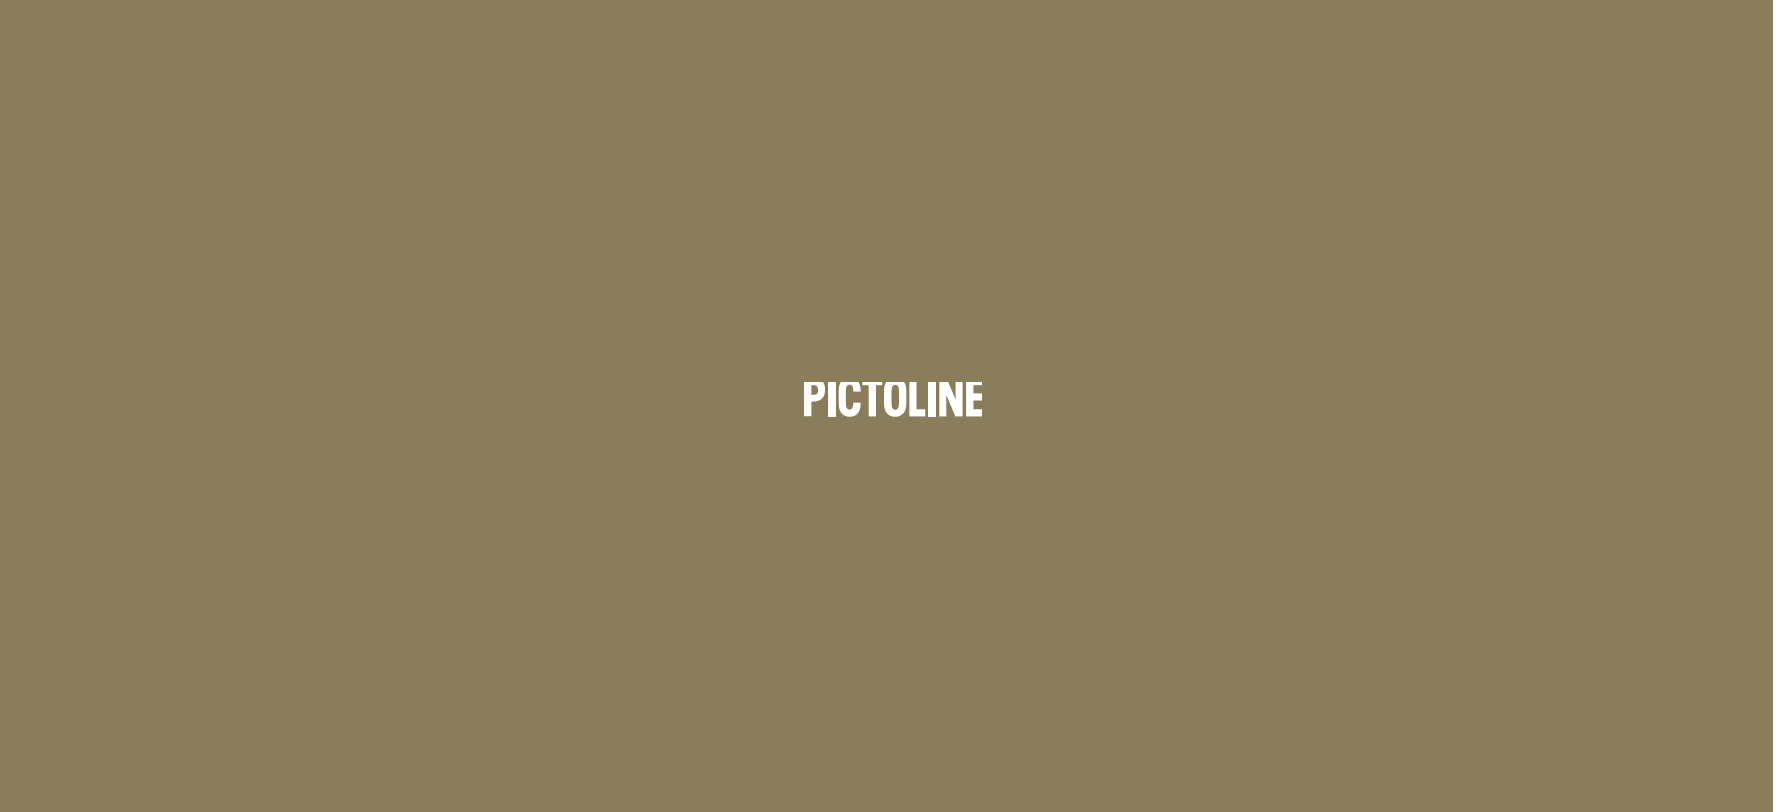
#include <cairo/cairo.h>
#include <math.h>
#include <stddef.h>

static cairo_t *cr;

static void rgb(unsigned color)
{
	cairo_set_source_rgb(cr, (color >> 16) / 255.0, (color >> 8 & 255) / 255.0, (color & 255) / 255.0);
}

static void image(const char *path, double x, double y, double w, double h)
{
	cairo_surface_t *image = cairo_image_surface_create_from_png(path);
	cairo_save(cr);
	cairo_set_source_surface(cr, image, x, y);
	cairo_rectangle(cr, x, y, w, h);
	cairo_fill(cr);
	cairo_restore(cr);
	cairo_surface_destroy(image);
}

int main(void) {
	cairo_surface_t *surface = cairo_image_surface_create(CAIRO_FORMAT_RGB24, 1786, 812);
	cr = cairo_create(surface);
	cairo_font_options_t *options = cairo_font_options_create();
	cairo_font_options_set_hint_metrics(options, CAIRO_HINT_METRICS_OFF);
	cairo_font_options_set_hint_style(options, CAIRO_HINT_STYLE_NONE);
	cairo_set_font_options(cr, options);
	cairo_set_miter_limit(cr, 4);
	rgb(0xffffff);
	cairo_paint(cr);
	rgb(0x8a7d5c);
	cairo_rectangle(cr, 0, 0, 1773, 812);
	cairo_fill(cr);
	image("img/1.png", 804, 382, 178, 35);
	cairo_surface_write_to_png(surface, "page.png");
	cairo_font_options_destroy(options);
	cairo_destroy(cr);
	cairo_surface_destroy(surface);
	return 0;
}
